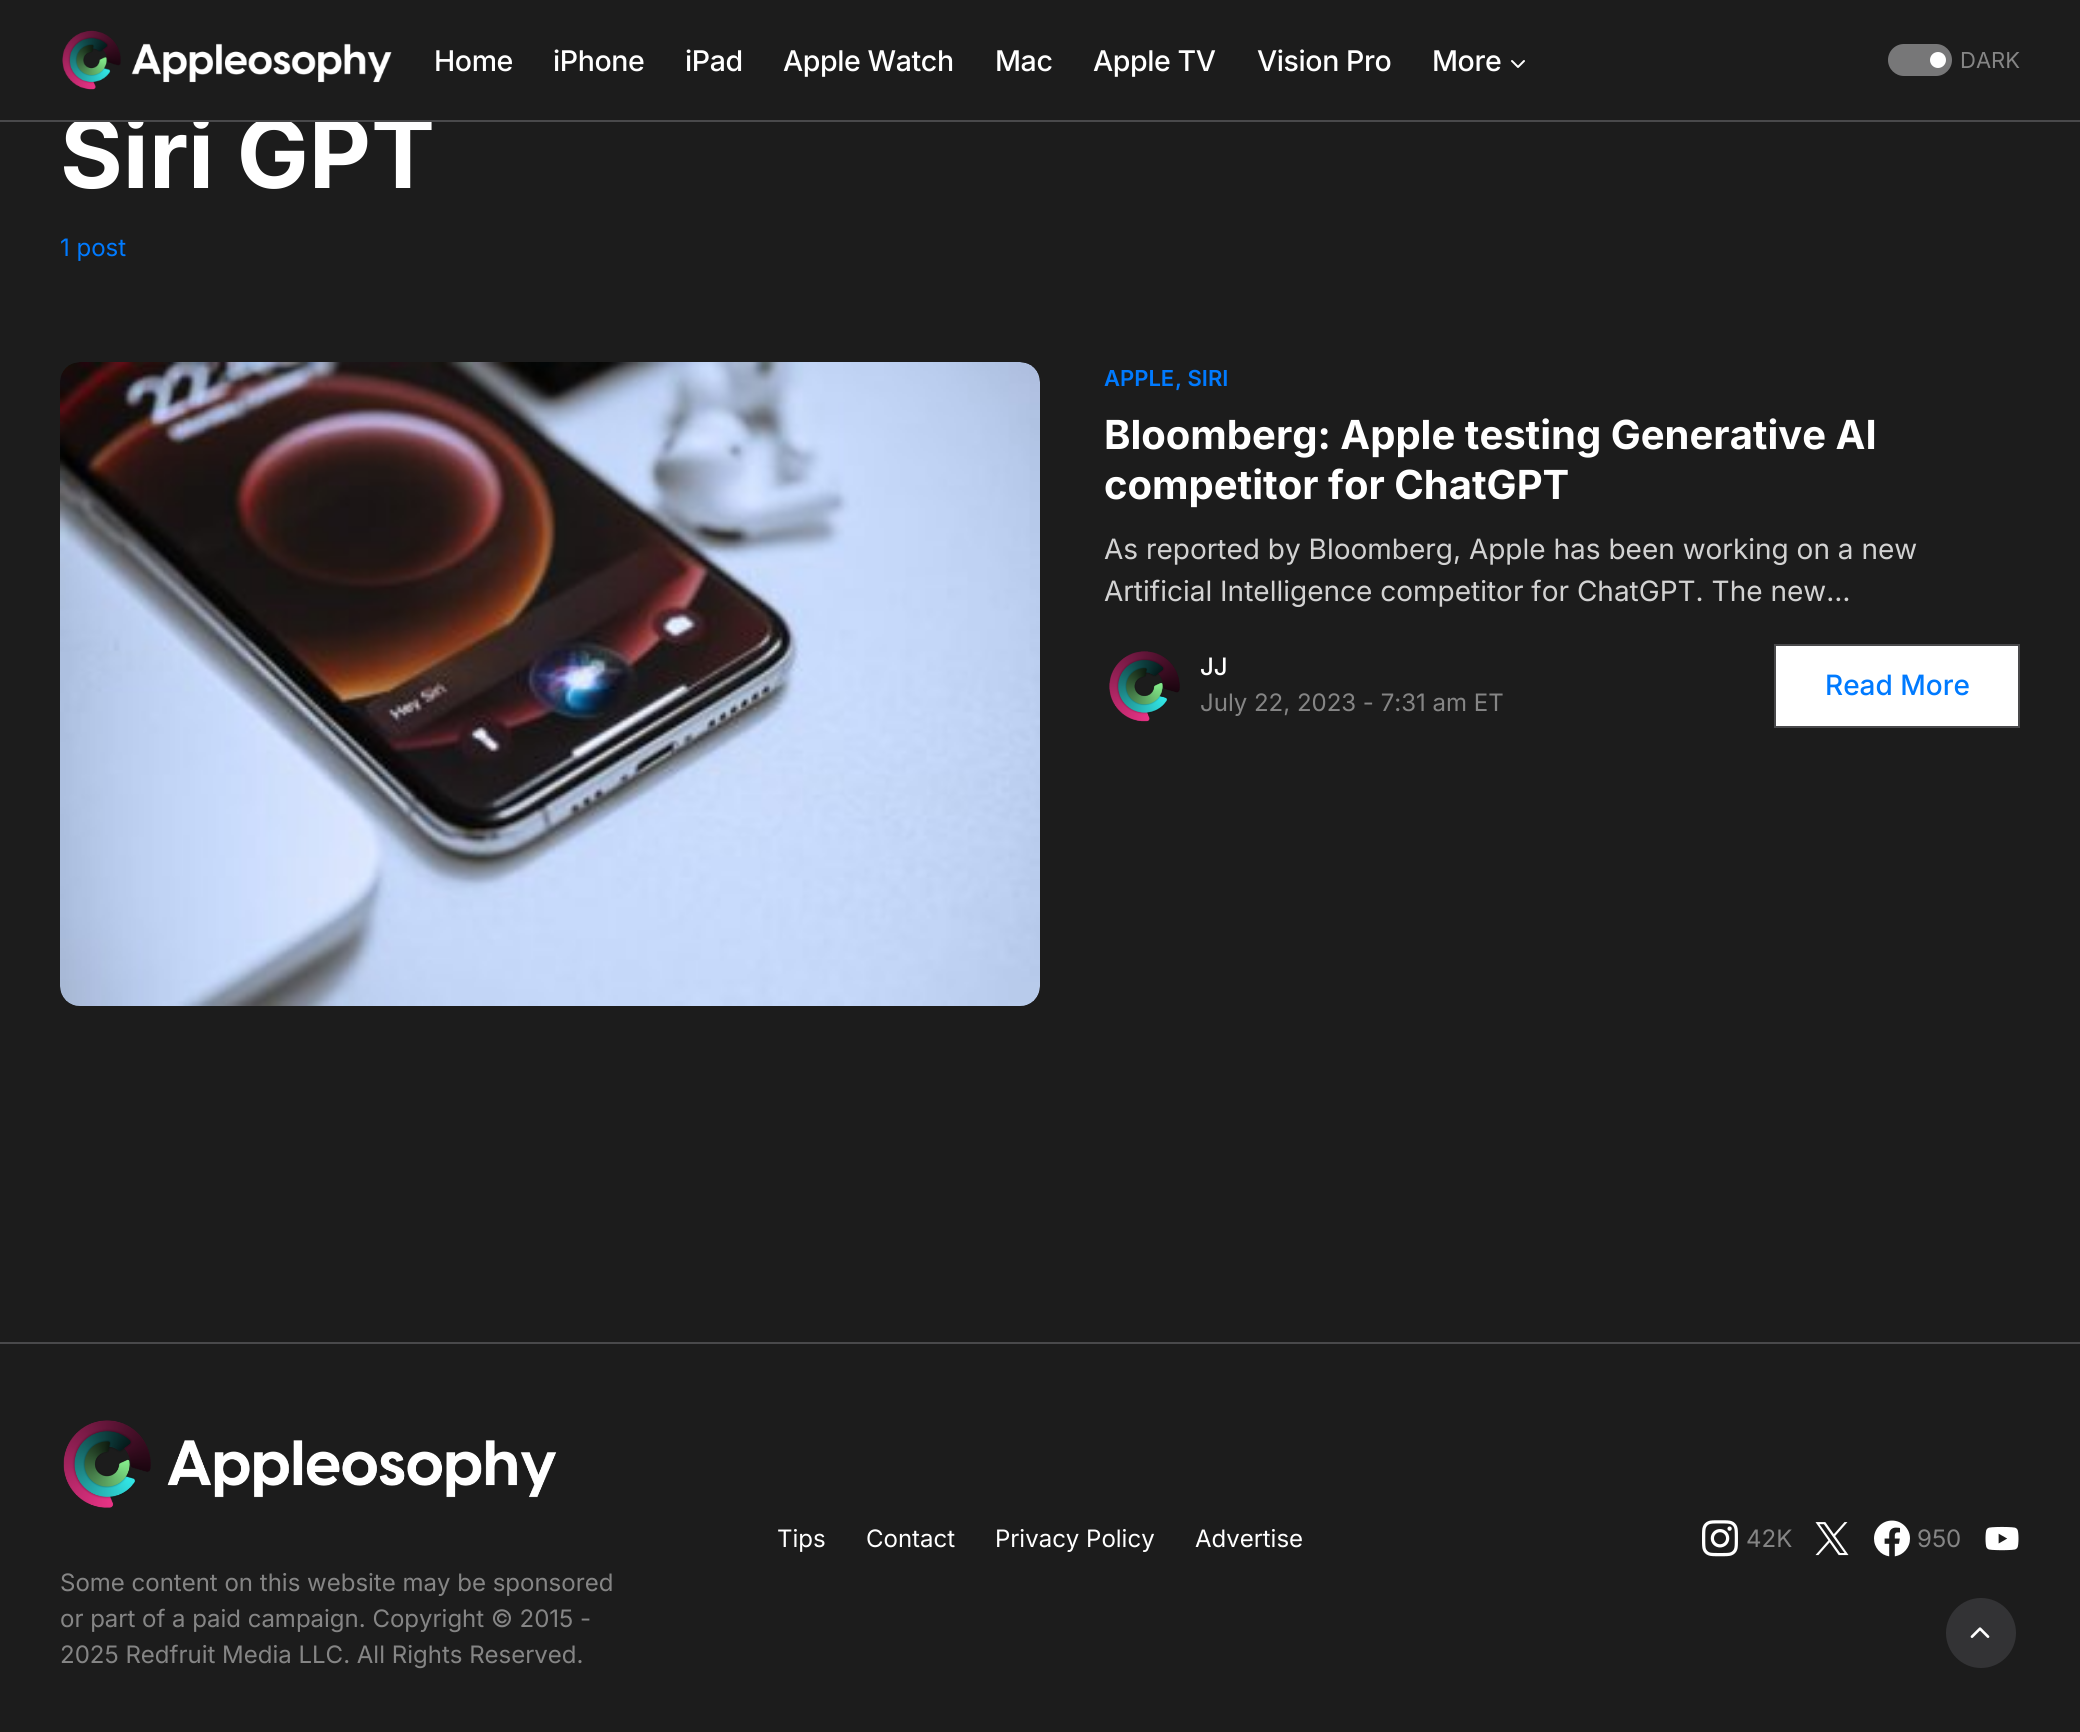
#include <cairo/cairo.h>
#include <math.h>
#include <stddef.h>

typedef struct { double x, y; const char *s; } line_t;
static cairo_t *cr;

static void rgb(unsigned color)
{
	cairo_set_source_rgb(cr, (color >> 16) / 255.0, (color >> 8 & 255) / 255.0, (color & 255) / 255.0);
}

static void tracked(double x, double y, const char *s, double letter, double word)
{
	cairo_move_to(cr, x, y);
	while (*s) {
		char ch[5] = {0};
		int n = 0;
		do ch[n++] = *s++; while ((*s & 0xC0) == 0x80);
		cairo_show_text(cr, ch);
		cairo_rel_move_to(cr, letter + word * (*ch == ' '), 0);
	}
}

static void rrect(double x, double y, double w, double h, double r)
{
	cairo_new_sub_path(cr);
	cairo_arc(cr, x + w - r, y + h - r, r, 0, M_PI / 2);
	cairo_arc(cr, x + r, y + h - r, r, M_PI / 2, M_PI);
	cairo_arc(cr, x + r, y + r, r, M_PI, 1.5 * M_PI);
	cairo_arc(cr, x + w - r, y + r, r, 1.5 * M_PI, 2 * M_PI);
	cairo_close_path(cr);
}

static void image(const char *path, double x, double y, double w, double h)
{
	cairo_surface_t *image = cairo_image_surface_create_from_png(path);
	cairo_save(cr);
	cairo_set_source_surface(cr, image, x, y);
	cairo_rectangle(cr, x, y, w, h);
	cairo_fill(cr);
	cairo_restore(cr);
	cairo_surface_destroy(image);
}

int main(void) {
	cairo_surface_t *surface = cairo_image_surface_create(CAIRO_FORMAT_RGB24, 2080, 1732);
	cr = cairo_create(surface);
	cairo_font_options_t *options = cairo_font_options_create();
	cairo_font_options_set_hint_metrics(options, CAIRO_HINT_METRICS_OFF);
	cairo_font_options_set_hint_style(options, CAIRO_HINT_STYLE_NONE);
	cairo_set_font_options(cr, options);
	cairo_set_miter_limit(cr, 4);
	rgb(0x1c1c1c);
	cairo_paint(cr);
	image("img/1.png", 62, 30, 330, 60);
	image("img/2.png", 1511, 60, 14, 8);
	rgb(0x777778);
	rrect(1888, 44, 64, 32, 16);
	cairo_fill(cr);
	rgb(0xffffff);
	cairo_arc(cr, 1938, 60, 8, 0, 2 * M_PI);
	cairo_fill(cr);
	image("img/3.png", 60, 362, 980, 644);
	image("img/4.png", 1109, 651, 71, 71);
	cairo_rectangle(cr, 1775, 645, 244, 82);
	cairo_fill_preserve(cr);
	rgb(0x49494b);
	cairo_stroke(cr);
	cairo_rectangle(cr, 0, 1342, 2080, 2);
	cairo_fill(cr);
	image("img/5.png", 1702, 1520, 36, 37);
	image("img/6.png", 1815, 1522, 34, 34);
	image("img/7.png", 1874, 1520, 36, 37);
	image("img/8.png", 1985, 1526, 34, 25);
	image("img/9.png", 63, 1420, 494, 88);
	rgb(0x333335);
	cairo_arc(cr, 1981, 1633, 35, 0, 2 * M_PI);
	cairo_fill(cr);
	image("img/10.png", 1970, 1627, 20, 11);
	cairo_select_font_face(cr, "Inter Medium", CAIRO_FONT_SLANT_NORMAL, CAIRO_FONT_WEIGHT_NORMAL);
	cairo_set_font_size(cr, 28.5);
	rgb(0xffffff);
	{
		static const line_t items[] = {
			{434, 71, "Home"},
			{553, 71, "iPhone"},
			{685, 71, "iPad"},
			{783, 71, "Apple Watch"},
			{995, 71, "Mac"},
			{1093, 71, "Apple TV"},
			{1257, 71, "Vision Pro"},
			{1432, 71, "More"},
		};
		for (size_t i = 0; i < sizeof items / sizeof *items; i++) {
			tracked(items[i].x, items[i].y, items[i].s, -0.4, 0);
		}
	}
	cairo_select_font_face(cr, "Inter", CAIRO_FONT_SLANT_NORMAL, CAIRO_FONT_WEIGHT_NORMAL);
	cairo_set_font_size(cr, 22);
	rgb(0x858585);
	cairo_move_to(cr, 1960, 68);
	cairo_show_text(cr, "DARK");
	cairo_select_font_face(cr, "Inter", CAIRO_FONT_SLANT_NORMAL, CAIRO_FONT_WEIGHT_BOLD);
	cairo_set_font_size(cr, 96);
	rgb(0xffffff);
	cairo_move_to(cr, 60, 188);
	cairo_show_text(cr, "Siri GPT");
	rgb(0x49494b);
	cairo_rectangle(cr, 0, 120, 2080, 2);
	cairo_fill(cr);
	rgb(0x1c1c1c);
	cairo_rectangle(cr, 78, 114, 354, 6);
	cairo_fill(cr);
	cairo_select_font_face(cr, "Inter", CAIRO_FONT_SLANT_NORMAL, CAIRO_FONT_WEIGHT_NORMAL);
	cairo_set_font_size(cr, 24);
	rgb(0x007aff);
	cairo_move_to(cr, 60, 256);
	cairo_show_text(cr, "1 post");
	cairo_select_font_face(cr, "Inter SemiBold", CAIRO_FONT_SLANT_NORMAL, CAIRO_FONT_WEIGHT_NORMAL);
	cairo_set_font_size(cr, 22);
	cairo_move_to(cr, 1104, 386);
	cairo_show_text(cr, "APPLE");
	cairo_move_to(cr, 1175, 386);
	cairo_show_text(cr, ", SIRI");
	cairo_select_font_face(cr, "Inter", CAIRO_FONT_SLANT_NORMAL, CAIRO_FONT_WEIGHT_BOLD);
	cairo_set_font_size(cr, 40);
	rgb(0xffffff);
	cairo_move_to(cr, 1104, 449);
	cairo_show_text(cr, "Bloomberg: Apple testing Generative AI");
	cairo_move_to(cr, 1104, 499);
	cairo_show_text(cr, "competitor for ChatGPT");
	cairo_select_font_face(cr, "Inter", CAIRO_FONT_SLANT_NORMAL, CAIRO_FONT_WEIGHT_NORMAL);
	cairo_set_font_size(cr, 28);
	rgb(0xd2d2d2);
	cairo_move_to(cr, 1104, 559);
	cairo_show_text(cr, "As reported by Bloomberg, Apple has been working on a new");
	cairo_move_to(cr, 1104, 601);
	cairo_show_text(cr, "Artificial Intelligence competitor for ChatGPT. The new…");
	cairo_select_font_face(cr, "Inter Medium", CAIRO_FONT_SLANT_NORMAL, CAIRO_FONT_WEIGHT_NORMAL);
	cairo_set_font_size(cr, 24);
	rgb(0xffffff);
	cairo_move_to(cr, 1200, 675);
	cairo_show_text(cr, "JJ");
	cairo_select_font_face(cr, "Inter", CAIRO_FONT_SLANT_NORMAL, CAIRO_FONT_WEIGHT_NORMAL);
	rgb(0x858585);
	cairo_move_to(cr, 1200, 711);
	cairo_show_text(cr, "July 22, 2023 - 7:31 am ET");
	cairo_select_font_face(cr, "Inter Medium", CAIRO_FONT_SLANT_NORMAL, CAIRO_FONT_WEIGHT_NORMAL);
	cairo_set_font_size(cr, 28);
	rgb(0x007aff);
	cairo_move_to(cr, 1825, 695);
	cairo_show_text(cr, "Read More");
	cairo_select_font_face(cr, "Inter", CAIRO_FONT_SLANT_NORMAL, CAIRO_FONT_WEIGHT_NORMAL);
	cairo_set_font_size(cr, 24);
	rgb(0xffffff);
	{
		static const line_t items[] = {
			{777, 1547, "Tips"},
			{866, 1547, "Contact"},
			{995, 1547, "Privacy Policy"},
			{1195, 1547, "Advertise"},
		};
		for (size_t i = 0; i < sizeof items / sizeof *items; i++) {
			cairo_move_to(cr, items[i].x, items[i].y);
			cairo_show_text(cr, items[i].s);
		}
	}
	rgb(0x858585);
	{
		static const line_t items[] = {
			{1746, 1547, "42K"},
			{1917, 1547, "950"},
			{60, 1591, "Some content on this website may be sponsored"},
			{60, 1627, "or part of a paid campaign. Copyright © 2015 -"},
			{60, 1663, "2025 Redfruit Media LLC. All Rights Reserved."},
		};
		for (size_t i = 0; i < sizeof items / sizeof *items; i++) {
			cairo_move_to(cr, items[i].x, items[i].y);
			cairo_show_text(cr, items[i].s);
		}
	}
	cairo_surface_write_to_png(surface, "page.png");
	cairo_font_options_destroy(options);
	cairo_destroy(cr);
	cairo_surface_destroy(surface);
	return 0;
}
